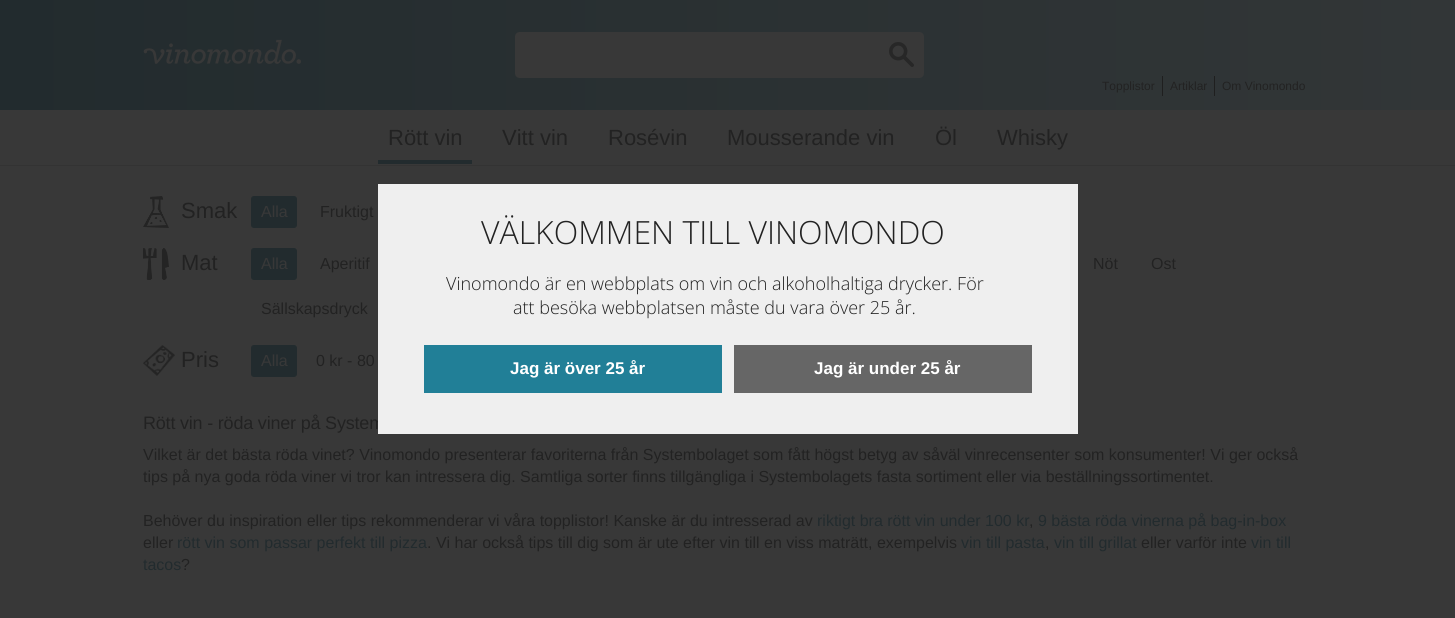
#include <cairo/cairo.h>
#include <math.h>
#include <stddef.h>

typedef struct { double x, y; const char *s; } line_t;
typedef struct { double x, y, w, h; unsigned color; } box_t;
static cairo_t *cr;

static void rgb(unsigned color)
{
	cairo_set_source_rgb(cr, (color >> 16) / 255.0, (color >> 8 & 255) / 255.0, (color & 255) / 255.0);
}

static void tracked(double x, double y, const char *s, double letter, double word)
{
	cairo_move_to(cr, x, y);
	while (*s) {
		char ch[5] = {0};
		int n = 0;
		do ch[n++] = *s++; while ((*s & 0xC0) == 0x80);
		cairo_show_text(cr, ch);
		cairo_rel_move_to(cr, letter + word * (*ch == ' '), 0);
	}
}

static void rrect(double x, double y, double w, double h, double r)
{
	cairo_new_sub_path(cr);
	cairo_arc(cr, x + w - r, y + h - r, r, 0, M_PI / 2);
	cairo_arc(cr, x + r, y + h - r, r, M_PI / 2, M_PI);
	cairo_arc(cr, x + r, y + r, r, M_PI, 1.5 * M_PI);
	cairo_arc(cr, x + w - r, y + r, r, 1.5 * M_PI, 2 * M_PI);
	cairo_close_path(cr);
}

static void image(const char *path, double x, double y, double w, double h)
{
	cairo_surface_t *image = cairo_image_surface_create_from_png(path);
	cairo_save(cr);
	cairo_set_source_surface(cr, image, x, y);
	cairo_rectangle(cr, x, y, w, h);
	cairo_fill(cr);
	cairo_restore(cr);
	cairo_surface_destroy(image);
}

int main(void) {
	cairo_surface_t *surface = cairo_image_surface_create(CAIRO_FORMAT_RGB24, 1455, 618);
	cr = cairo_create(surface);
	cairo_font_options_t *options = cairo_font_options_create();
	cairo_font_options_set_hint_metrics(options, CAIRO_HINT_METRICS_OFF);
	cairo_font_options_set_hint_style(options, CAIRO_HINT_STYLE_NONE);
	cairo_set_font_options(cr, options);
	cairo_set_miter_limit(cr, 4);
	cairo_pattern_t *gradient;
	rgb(0x383838);
	cairo_paint(cr);
	gradient = cairo_pattern_create_linear(0, 55, 1455, 55);
	cairo_pattern_add_color_stop_rgba(gradient, 0, 0.133, 0.169, 0.18, 1);
	cairo_pattern_add_color_stop_rgba(gradient, 1, 0.196, 0.212, 0.216, 1);
	cairo_set_source(cr, gradient);
	cairo_pattern_destroy(gradient);
	cairo_rectangle(cr, 0, 0, 1455, 110);
	cairo_fill(cr);
	image("img/1.png", 143, 39, 158, 25);
	rgb(0x383838);
	cairo_new_path(cr);
	cairo_move_to(cr, 520, 32);
	cairo_line_to(cr, 890, 32);
	cairo_line_to(cr, 890, 78);
	cairo_line_to(cr, 520, 78);
	cairo_curve_to(cr, 517, 78, 515, 76, 515, 73);
	cairo_line_to(cr, 515, 37);
	cairo_curve_to(cr, 515, 34, 517, 32, 520, 32);
	cairo_close_path(cr);
	cairo_fill(cr);
	cairo_new_path(cr);
	cairo_move_to(cr, 889, 32);
	cairo_line_to(cr, 919, 32);
	cairo_curve_to(cr, 922, 32, 924, 34, 924, 37);
	cairo_line_to(cr, 924, 73);
	cairo_curve_to(cr, 924, 76, 922, 78, 919, 78);
	cairo_line_to(cr, 889, 78);
	cairo_close_path(cr);
	cairo_fill(cr);
	image("img/2.png", 889, 42, 25, 25);
	{
		static const box_t items[] = {
			{1162, 76, 1, 20, 0x1f1f1f},
			{1214, 76, 1, 20, 0x1f1f1f},
			{0, 165, 1455, 1, 0x333333},
			{378, 160, 94, 4, 0x222b2e},
		};
		for (size_t i = 0; i < sizeof items / sizeof *items; i++) {
			rgb(items[i].color);
			cairo_rectangle(cr, items[i].x, items[i].y, items[i].w, items[i].h);
			cairo_fill(cr);
		}
	}
	image("img/3.png", 143, 196, 26, 32);
	rrect(251.5, 196.5, 45, 31, 2.5);
	cairo_fill_preserve(cr);
	cairo_set_line_width(cr, 1);
	cairo_stroke(cr);
	image("img/4.png", 143, 248, 26, 32);
	rrect(251.5, 248.5, 45, 31, 2.5);
	cairo_fill_preserve(cr);
	cairo_stroke(cr);
	image("img/5.png", 143, 345, 32, 31);
	rrect(251.5, 345.5, 45, 31, 2.5);
	cairo_fill_preserve(cr);
	cairo_stroke(cr);
	cairo_select_font_face(cr, "Liberation Sans", CAIRO_FONT_SLANT_NORMAL, CAIRO_FONT_WEIGHT_NORMAL);
	cairo_set_font_size(cr, 12);
	rgb(0x222222);
	{
		static const line_t items[] = {
			{1102, 90, "Topplistor"},
			{1170, 90, "Artiklar"},
			{1222, 90, "Om Vinomondo"},
		};
		for (size_t i = 0; i < sizeof items / sizeof *items; i++) {
			cairo_move_to(cr, items[i].x, items[i].y);
			cairo_show_text(cr, items[i].s);
		}
	}
	cairo_set_font_size(cr, 22);
	{
		static const line_t items[] = {
			{388, 145, "Rött vin"},
			{502, 145, "Vitt vin"},
			{608, 145, "Rosévin"},
			{727, 145, "Mousserande vin"},
			{935, 145, "Öl"},
			{997, 145, "Whisky"},
			{181, 218, "Smak"},
		};
		for (size_t i = 0; i < sizeof items / sizeof *items; i++) {
			cairo_move_to(cr, items[i].x, items[i].y);
			cairo_show_text(cr, items[i].s);
		}
	}
	cairo_set_font_size(cr, 16);
	rgb(0x383838);
	cairo_move_to(cr, 261, 217);
	cairo_show_text(cr, "Alla");
	rgb(0x222222);
	cairo_move_to(cr, 320, 217);
	cairo_show_text(cr, "Fruktigt");
	cairo_set_font_size(cr, 22);
	cairo_move_to(cr, 181, 270);
	cairo_show_text(cr, "Mat");
	cairo_set_font_size(cr, 16);
	rgb(0x383838);
	cairo_move_to(cr, 261, 269);
	cairo_show_text(cr, "Alla");
	rgb(0x222222);
	{
		static const line_t items[] = {
			{320, 269, "Aperitif"},
			{1093, 269, "Nöt"},
			{1151, 269, "Ost"},
			{261, 314, "Sällskapsdryck"},
		};
		for (size_t i = 0; i < sizeof items / sizeof *items; i++) {
			cairo_move_to(cr, items[i].x, items[i].y);
			cairo_show_text(cr, items[i].s);
		}
	}
	cairo_set_font_size(cr, 22);
	cairo_move_to(cr, 181, 367);
	cairo_show_text(cr, "Pris");
	cairo_set_font_size(cr, 16);
	rgb(0x383838);
	cairo_move_to(cr, 261, 366);
	cairo_show_text(cr, "Alla");
	rgb(0x222222);
	cairo_move_to(cr, 316, 366);
	cairo_show_text(cr, "0 kr - 80");
	cairo_set_font_size(cr, 18);
	tracked(143, 429, "Rött vin - röda viner på System", -0.2, 0);
	cairo_set_font_size(cr, 16);
	{
		static const line_t items[] = {
			{143, 460, "Vilket är det bästa röda vinet? Vinomondo presenterar favoriterna från Systembolaget som fått högst betyg av såväl vinrecensenter som konsumenter! Vi ger också"},
			{143, 482, "tips på nya goda röda viner vi tror kan intressera dig. Samtliga sorter finns tillgängliga i Systembolagets fasta sortiment eller via beställningssortimentet."},
			{143, 526, "Behöver du inspiration eller tips rekommenderar vi våra topplistor! Kanske är du intresserad av"},
		};
		for (size_t i = 0; i < sizeof items / sizeof *items; i++) {
			cairo_move_to(cr, items[i].x, items[i].y);
			cairo_show_text(cr, items[i].s);
		}
	}
	rgb(0x222b2e);
	cairo_move_to(cr, 817, 526);
	cairo_show_text(cr, "riktigt bra rött vin under 100 kr");
	rgb(0x222222);
	cairo_move_to(cr, 1029, 526);
	cairo_show_text(cr, ",");
	rgb(0x222b2e);
	cairo_move_to(cr, 1038, 526);
	cairo_show_text(cr, "9 bästa röda vinerna på bag-in-box");
	rgb(0x222222);
	cairo_move_to(cr, 143, 548);
	cairo_show_text(cr, "eller");
	rgb(0x222b2e);
	cairo_move_to(cr, 177, 548);
	cairo_show_text(cr, "rött vin som passar perfekt till pizza");
	rgb(0x222222);
	cairo_move_to(cr, 427, 548);
	cairo_show_text(cr, ". Vi har också tips till dig som är ute efter vin till en viss maträtt, exempelvis");
	rgb(0x222b2e);
	cairo_move_to(cr, 961, 548);
	cairo_show_text(cr, "vin till pasta");
	rgb(0x222222);
	cairo_move_to(cr, 1045, 548);
	cairo_show_text(cr, ",");
	rgb(0x222b2e);
	cairo_move_to(cr, 1054, 548);
	cairo_show_text(cr, "vin till grillat");
	rgb(0x222222);
	cairo_move_to(cr, 1141, 548);
	cairo_show_text(cr, "eller varför inte");
	rgb(0x222b2e);
	cairo_move_to(cr, 1251, 548);
	cairo_show_text(cr, "vin till");
	cairo_move_to(cr, 143, 570);
	cairo_show_text(cr, "tacos");
	rgb(0x222222);
	cairo_move_to(cr, 181, 570);
	cairo_show_text(cr, "?");
	rgb(0xefefef);
	cairo_rectangle(cr, 378, 184, 700, 250);
	cairo_fill(cr);
	cairo_select_font_face(cr, "Open Sans Light", CAIRO_FONT_SLANT_NORMAL, CAIRO_FONT_WEIGHT_NORMAL);
	cairo_set_font_size(cr, 32);
	rgb(0x222222);
	cairo_move_to(cr, 481, 244);
	cairo_show_text(cr, "VÄLKOMMEN TILL VINOMONDO");
	cairo_set_font_size(cr, 18);
	cairo_move_to(cr, 446, 290);
	cairo_show_text(cr, "Vinomondo är en webbplats om vin och alkoholhaltiga drycker. För");
	cairo_move_to(cr, 513, 314);
	cairo_show_text(cr, "att besöka webbplatsen måste du vara över 25 år.");
	rgb(0x217f97);
	cairo_rectangle(cr, 424, 345, 298, 48);
	cairo_fill(cr);
	cairo_select_font_face(cr, "Liberation Sans", CAIRO_FONT_SLANT_NORMAL, CAIRO_FONT_WEIGHT_BOLD);
	cairo_set_font_size(cr, 17);
	rgb(0xffffff);
	cairo_move_to(cr, 510, 374);
	cairo_show_text(cr, "Jag är över 25 år");
	rgb(0x666666);
	cairo_rectangle(cr, 734, 345, 298, 48);
	cairo_fill(cr);
	rgb(0xffffff);
	cairo_move_to(cr, 814, 374);
	cairo_show_text(cr, "Jag är under 25 år");
	cairo_surface_write_to_png(surface, "page.png");
	cairo_font_options_destroy(options);
	cairo_destroy(cr);
	cairo_surface_destroy(surface);
	return 0;
}
